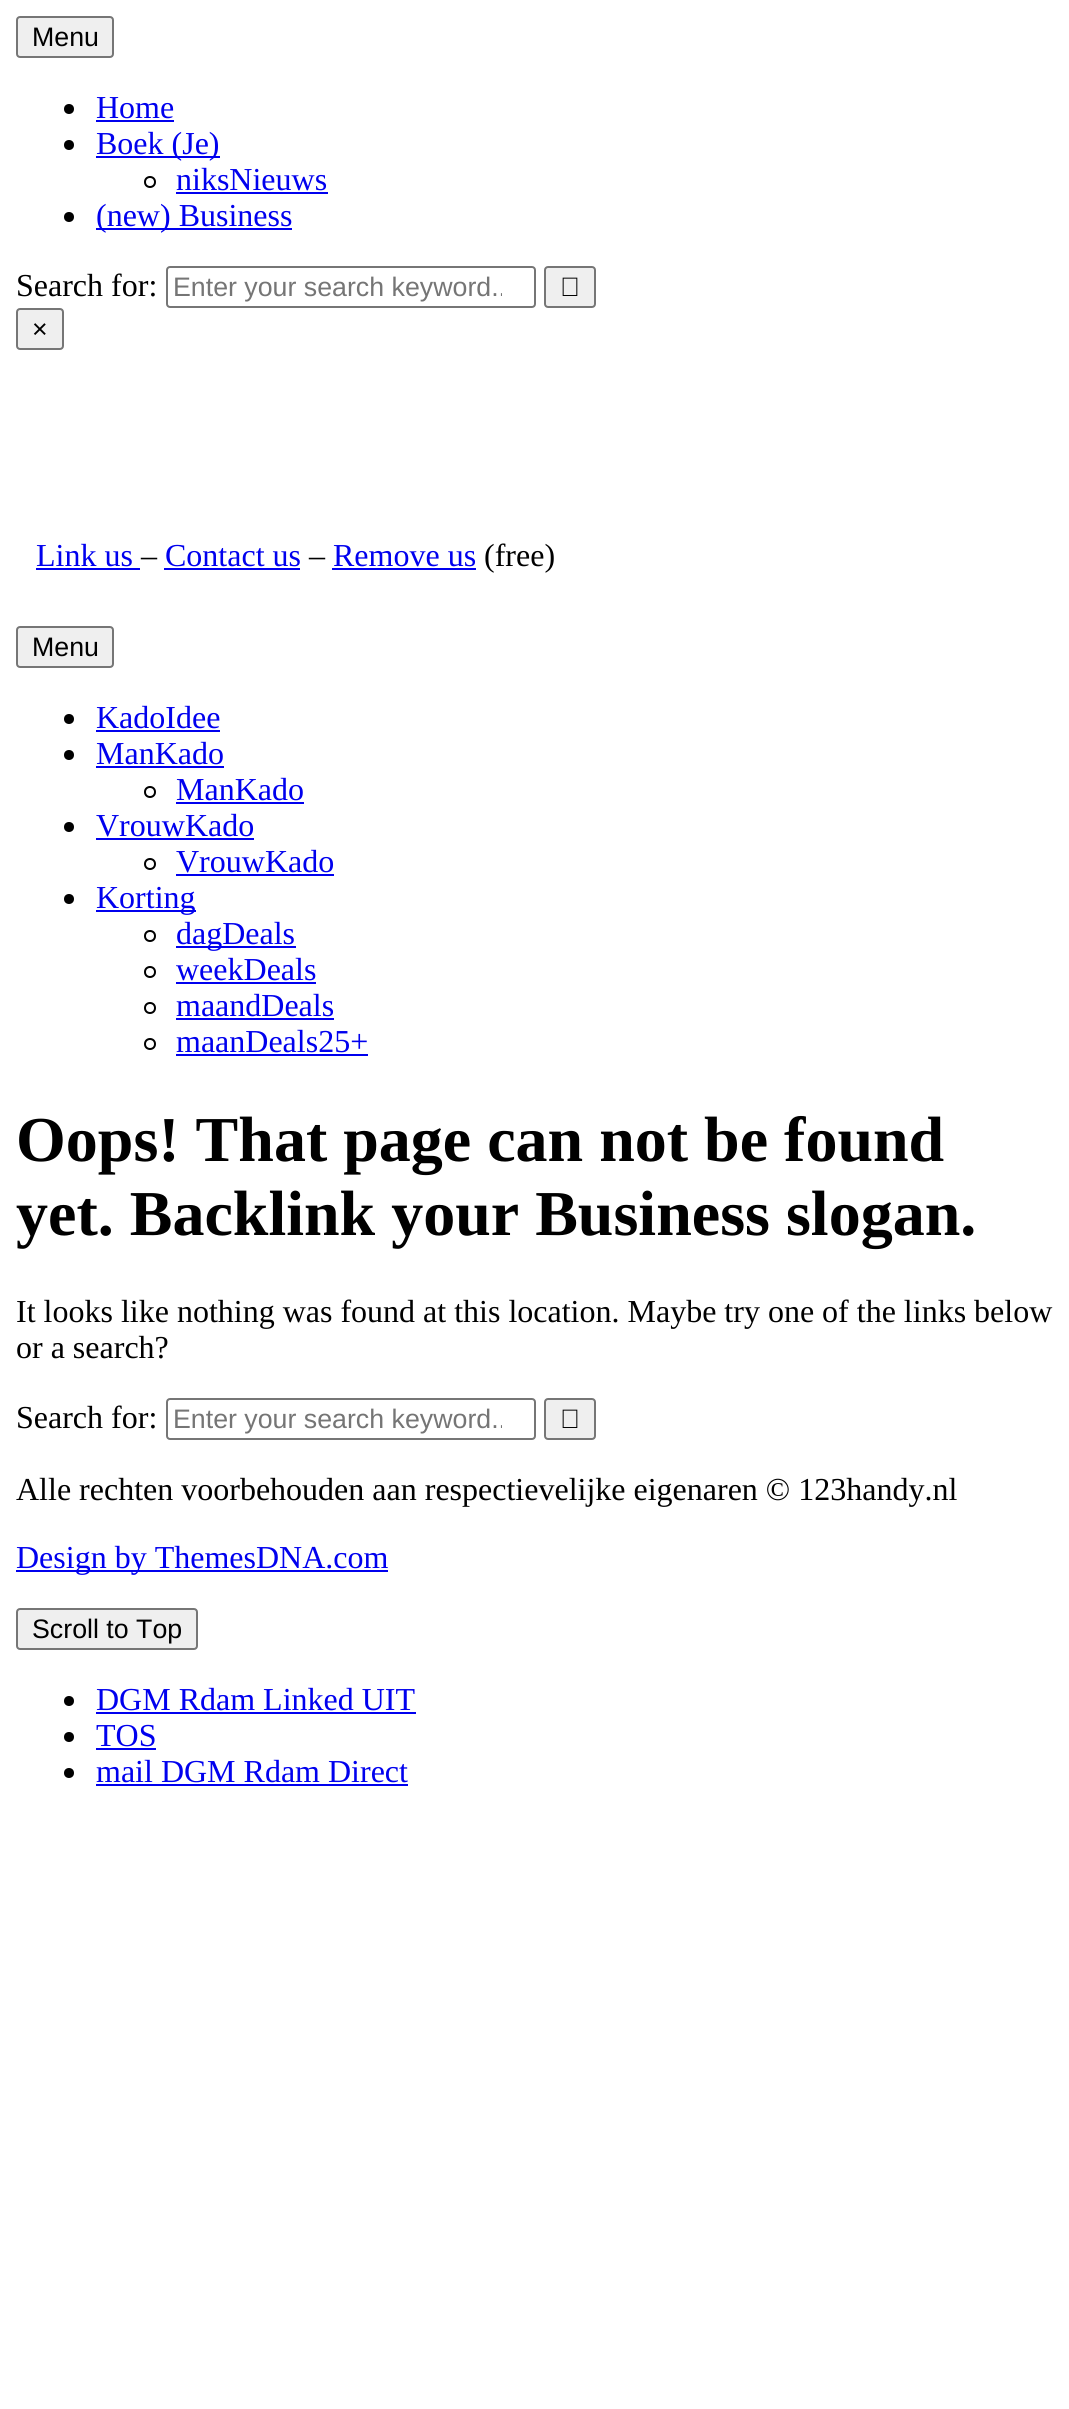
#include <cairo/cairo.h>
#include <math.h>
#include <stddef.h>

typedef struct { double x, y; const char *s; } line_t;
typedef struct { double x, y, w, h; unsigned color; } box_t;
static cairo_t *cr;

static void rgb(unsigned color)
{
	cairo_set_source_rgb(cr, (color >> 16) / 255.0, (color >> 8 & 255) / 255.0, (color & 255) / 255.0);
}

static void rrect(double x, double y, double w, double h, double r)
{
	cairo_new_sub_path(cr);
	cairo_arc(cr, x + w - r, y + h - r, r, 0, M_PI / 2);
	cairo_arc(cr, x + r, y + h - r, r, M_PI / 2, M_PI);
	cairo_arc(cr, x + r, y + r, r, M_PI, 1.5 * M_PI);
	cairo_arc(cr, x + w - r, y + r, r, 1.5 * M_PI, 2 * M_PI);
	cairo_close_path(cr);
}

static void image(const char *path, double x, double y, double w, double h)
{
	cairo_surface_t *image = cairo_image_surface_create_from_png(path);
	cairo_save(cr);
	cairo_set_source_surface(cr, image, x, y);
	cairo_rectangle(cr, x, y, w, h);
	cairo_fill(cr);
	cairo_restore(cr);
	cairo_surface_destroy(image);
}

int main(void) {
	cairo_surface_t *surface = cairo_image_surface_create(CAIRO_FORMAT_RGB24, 1069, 2409);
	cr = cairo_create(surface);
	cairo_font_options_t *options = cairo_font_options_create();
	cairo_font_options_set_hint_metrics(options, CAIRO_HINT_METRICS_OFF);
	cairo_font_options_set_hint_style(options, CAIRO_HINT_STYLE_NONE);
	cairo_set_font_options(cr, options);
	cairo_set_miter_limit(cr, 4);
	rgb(0xffffff);
	cairo_paint(cr);
	rgb(0xefefef);
	rrect(17, 17, 96, 40, 3);
	cairo_fill_preserve(cr);
	rgb(0x767676);
	cairo_stroke(cr);
	rgb(0x000000);
	cairo_arc(cr, 69, 109, 5, 0, 2 * M_PI);
	cairo_fill(cr);
	rgb(0x0000ee);
	cairo_rectangle(cr, 96, 120, 78, 2);
	cairo_fill(cr);
	rgb(0x000000);
	cairo_arc(cr, 69, 145, 5, 0, 2 * M_PI);
	cairo_fill(cr);
	rgb(0x0000ee);
	cairo_rectangle(cr, 96, 156, 124, 2);
	cairo_fill(cr);
	cairo_arc(cr, 150, 182, 5, 0, 2 * M_PI);
	rgb(0x000000);
	cairo_stroke(cr);
	rgb(0x0000ee);
	cairo_rectangle(cr, 176, 192, 152, 2);
	cairo_fill(cr);
	rgb(0x000000);
	cairo_arc(cr, 69, 217, 5, 0, 2 * M_PI);
	cairo_fill(cr);
	rgb(0x0000ee);
	cairo_rectangle(cr, 96, 228, 196, 2);
	cairo_fill(cr);
	rrect(167, 267, 368, 40, 3);
	rgb(0x767676);
	cairo_stroke(cr);
	rgb(0xefefef);
	rrect(545, 267, 50, 40, 3);
	cairo_fill_preserve(cr);
	rgb(0x767676);
	cairo_stroke(cr);
	image("img/1.png", 562, 277, 16, 19);
	rgb(0xefefef);
	rrect(17, 309, 46, 40, 3);
	cairo_fill_preserve(cr);
	rgb(0x767676);
	cairo_stroke(cr);
	{
		static const box_t items[] = {
			{36, 568, 104, 2, 0x0000ee},
			{164, 568, 136, 2, 0x0000ee},
			{332, 568, 144, 2, 0x0000ee},
		};
		for (size_t i = 0; i < sizeof items / sizeof *items; i++) {
			rgb(items[i].color);
			cairo_rectangle(cr, items[i].x, items[i].y, items[i].w, items[i].h);
			cairo_fill(cr);
		}
	}
	rgb(0xefefef);
	rrect(17, 627, 96, 40, 3);
	cairo_fill_preserve(cr);
	rgb(0x767676);
	cairo_stroke(cr);
	rgb(0x000000);
	cairo_arc(cr, 69, 719, 5, 0, 2 * M_PI);
	cairo_fill(cr);
	rgb(0x0000ee);
	cairo_rectangle(cr, 96, 730, 124, 2);
	cairo_fill(cr);
	rgb(0x000000);
	cairo_arc(cr, 69, 755, 5, 0, 2 * M_PI);
	cairo_fill(cr);
	rgb(0x0000ee);
	cairo_rectangle(cr, 96, 766, 128, 2);
	cairo_fill(cr);
	cairo_arc(cr, 150, 792, 5, 0, 2 * M_PI);
	rgb(0x000000);
	cairo_stroke(cr);
	rgb(0x0000ee);
	cairo_rectangle(cr, 176, 802, 128, 2);
	cairo_fill(cr);
	rgb(0x000000);
	cairo_arc(cr, 69, 827, 5, 0, 2 * M_PI);
	cairo_fill(cr);
	rgb(0x0000ee);
	cairo_rectangle(cr, 96, 838, 158, 2);
	cairo_fill(cr);
	cairo_arc(cr, 150, 864, 5, 0, 2 * M_PI);
	rgb(0x000000);
	cairo_stroke(cr);
	rgb(0x0000ee);
	cairo_rectangle(cr, 176, 874, 158, 2);
	cairo_fill(cr);
	rgb(0x000000);
	cairo_arc(cr, 69, 899, 5, 0, 2 * M_PI);
	cairo_fill(cr);
	rgb(0x0000ee);
	cairo_rectangle(cr, 96, 910, 100, 2);
	cairo_fill(cr);
	cairo_arc(cr, 150, 936, 5, 0, 2 * M_PI);
	rgb(0x000000);
	cairo_stroke(cr);
	rgb(0x0000ee);
	cairo_rectangle(cr, 176, 946, 120, 2);
	cairo_fill(cr);
	cairo_arc(cr, 150, 972, 5, 0, 2 * M_PI);
	rgb(0x000000);
	cairo_stroke(cr);
	rgb(0x0000ee);
	cairo_rectangle(cr, 176, 982, 140, 2);
	cairo_fill(cr);
	cairo_arc(cr, 150, 1008, 5, 0, 2 * M_PI);
	rgb(0x000000);
	cairo_stroke(cr);
	rgb(0x0000ee);
	cairo_rectangle(cr, 176, 1018, 158, 2);
	cairo_fill(cr);
	cairo_arc(cr, 150, 1044, 5, 0, 2 * M_PI);
	rgb(0x000000);
	cairo_stroke(cr);
	rgb(0x0000ee);
	cairo_rectangle(cr, 176, 1054, 192, 2);
	cairo_fill(cr);
	rrect(167, 1399, 368, 40, 3);
	rgb(0x767676);
	cairo_stroke(cr);
	rgb(0xefefef);
	rrect(545, 1399, 50, 40, 3);
	cairo_fill_preserve(cr);
	rgb(0x767676);
	cairo_stroke(cr);
	image("img/1.png", 562, 1409, 16, 19);
	rgb(0x0000ee);
	cairo_rectangle(cr, 16, 1570, 372, 2);
	cairo_fill(cr);
	rgb(0xefefef);
	rrect(17, 1609, 180, 40, 3);
	cairo_fill_preserve(cr);
	rgb(0x767676);
	cairo_stroke(cr);
	rgb(0x000000);
	cairo_arc(cr, 69, 1701, 5, 0, 2 * M_PI);
	cairo_fill(cr);
	rgb(0x0000ee);
	cairo_rectangle(cr, 96, 1712, 320, 2);
	cairo_fill(cr);
	rgb(0x000000);
	cairo_arc(cr, 69, 1737, 5, 0, 2 * M_PI);
	cairo_fill(cr);
	rgb(0x0000ee);
	cairo_rectangle(cr, 96, 1748, 60, 2);
	cairo_fill(cr);
	rgb(0x000000);
	cairo_arc(cr, 69, 1773, 5, 0, 2 * M_PI);
	cairo_fill(cr);
	rgb(0x0000ee);
	cairo_rectangle(cr, 96, 1784, 312, 2);
	cairo_fill(cr);
	cairo_select_font_face(cr, "Liberation Sans", CAIRO_FONT_SLANT_NORMAL, CAIRO_FONT_WEIGHT_NORMAL);
	cairo_set_font_size(cr, 26.75);
	rgb(0x000000);
	cairo_move_to(cr, 32, 46);
	cairo_show_text(cr, "Menu");
	cairo_select_font_face(cr, "Liberation Serif", CAIRO_FONT_SLANT_NORMAL, CAIRO_FONT_WEIGHT_NORMAL);
	cairo_set_font_size(cr, 32);
	rgb(0x0000ee);
	{
		static const line_t items[] = {
			{96, 118, "Home"},
			{96, 154, "Boek (Je)"},
			{176, 190, "niksNieuws"},
			{96, 226, "(new) Business"},
		};
		for (size_t i = 0; i < sizeof items / sizeof *items; i++) {
			cairo_move_to(cr, items[i].x, items[i].y);
			cairo_show_text(cr, items[i].s);
		}
	}
	rgb(0x000000);
	cairo_move_to(cr, 16, 296);
	cairo_show_text(cr, "Search for:");
	cairo_save(cr);
	cairo_rectangle(cr, 174, 272, 328, 30);
	cairo_clip(cr);
	cairo_select_font_face(cr, "Liberation Sans", CAIRO_FONT_SLANT_NORMAL, CAIRO_FONT_WEIGHT_NORMAL);
	cairo_set_font_size(cr, 26.75);
	rgb(0x757575);
	cairo_move_to(cr, 173, 296);
	cairo_show_text(cr, "Enter your search keyword..");
	cairo_restore(cr);
	cairo_select_font_face(cr, "Liberation Sans", CAIRO_FONT_SLANT_NORMAL, CAIRO_FONT_WEIGHT_NORMAL);
	cairo_set_font_size(cr, 26.75);
	cairo_move_to(cr, 32, 338);
	cairo_show_text(cr, "×");
	cairo_select_font_face(cr, "Liberation Serif", CAIRO_FONT_SLANT_NORMAL, CAIRO_FONT_WEIGHT_NORMAL);
	cairo_set_font_size(cr, 32);
	rgb(0x0000ee);
	cairo_move_to(cr, 36, 566);
	cairo_show_text(cr, "Link us");
	rgb(0x000000);
	cairo_move_to(cr, 141, 566);
	cairo_show_text(cr, "–");
	rgb(0x0000ee);
	cairo_move_to(cr, 165, 566);
	cairo_show_text(cr, "Contact us");
	rgb(0x000000);
	cairo_move_to(cr, 309, 566);
	cairo_show_text(cr, "–");
	rgb(0x0000ee);
	cairo_move_to(cr, 333, 566);
	cairo_show_text(cr, "Remove us");
	rgb(0x000000);
	cairo_move_to(cr, 484, 566);
	cairo_show_text(cr, "(free)");
	cairo_select_font_face(cr, "Liberation Sans", CAIRO_FONT_SLANT_NORMAL, CAIRO_FONT_WEIGHT_NORMAL);
	cairo_set_font_size(cr, 26.75);
	cairo_move_to(cr, 32, 656);
	cairo_show_text(cr, "Menu");
	cairo_select_font_face(cr, "Liberation Serif", CAIRO_FONT_SLANT_NORMAL, CAIRO_FONT_WEIGHT_NORMAL);
	cairo_set_font_size(cr, 32);
	rgb(0x0000ee);
	{
		static const line_t items[] = {
			{96, 728, "KadoIdee"},
			{96, 764, "ManKado"},
			{176, 800, "ManKado"},
			{96, 836, "VrouwKado"},
			{176, 872, "VrouwKado"},
			{96, 908, "Korting"},
			{176, 944, "dagDeals"},
			{176, 980, "weekDeals"},
			{176, 1016, "maandDeals"},
			{176, 1052, "maanDeals25+"},
		};
		for (size_t i = 0; i < sizeof items / sizeof *items; i++) {
			cairo_move_to(cr, items[i].x, items[i].y);
			cairo_show_text(cr, items[i].s);
		}
	}
	cairo_select_font_face(cr, "Liberation Serif", CAIRO_FONT_SLANT_NORMAL, CAIRO_FONT_WEIGHT_BOLD);
	cairo_set_font_size(cr, 64);
	rgb(0x000000);
	cairo_move_to(cr, 16, 1161);
	cairo_show_text(cr, "Oops! That page can not be found");
	cairo_move_to(cr, 16, 1235);
	cairo_show_text(cr, "yet. Backlink your Business slogan.");
	cairo_select_font_face(cr, "Liberation Serif", CAIRO_FONT_SLANT_NORMAL, CAIRO_FONT_WEIGHT_NORMAL);
	cairo_set_font_size(cr, 32);
	{
		static const line_t items[] = {
			{16, 1322, "It looks like nothing was found at this location. Maybe try one of the links below"},
			{16, 1358, "or a search?"},
			{16, 1428, "Search for:"},
		};
		for (size_t i = 0; i < sizeof items / sizeof *items; i++) {
			cairo_move_to(cr, items[i].x, items[i].y);
			cairo_show_text(cr, items[i].s);
		}
	}
	cairo_save(cr);
	cairo_rectangle(cr, 174, 1404, 328, 30);
	cairo_clip(cr);
	cairo_select_font_face(cr, "Liberation Sans", CAIRO_FONT_SLANT_NORMAL, CAIRO_FONT_WEIGHT_NORMAL);
	cairo_set_font_size(cr, 26.75);
	rgb(0x757575);
	cairo_move_to(cr, 173, 1428);
	cairo_show_text(cr, "Enter your search keyword..");
	cairo_restore(cr);
	cairo_move_to(cr, 16, 1500);
	cairo_show_text(cr, "Alle rechten voorbehouden aan respectievelijke eigenaren © 123handy.nl");
	rgb(0x0000ee);
	cairo_move_to(cr, 16, 1568);
	cairo_show_text(cr, "Design by ThemesDNA.com");
	cairo_select_font_face(cr, "Liberation Sans", CAIRO_FONT_SLANT_NORMAL, CAIRO_FONT_WEIGHT_NORMAL);
	cairo_set_font_size(cr, 26.75);
	rgb(0x000000);
	cairo_move_to(cr, 32, 1638);
	cairo_show_text(cr, "Scroll to Top");
	cairo_select_font_face(cr, "Liberation Serif", CAIRO_FONT_SLANT_NORMAL, CAIRO_FONT_WEIGHT_NORMAL);
	cairo_set_font_size(cr, 32);
	rgb(0x0000ee);
	{
		static const line_t items[] = {
			{96, 1710, "DGM Rdam Linked UIT"},
			{96, 1746, "TOS"},
			{96, 1782, "mail DGM Rdam Direct"},
		};
		for (size_t i = 0; i < sizeof items / sizeof *items; i++) {
			cairo_move_to(cr, items[i].x, items[i].y);
			cairo_show_text(cr, items[i].s);
		}
	}
	cairo_surface_write_to_png(surface, "page.png");
	cairo_font_options_destroy(options);
	cairo_destroy(cr);
	cairo_surface_destroy(surface);
	return 0;
}
